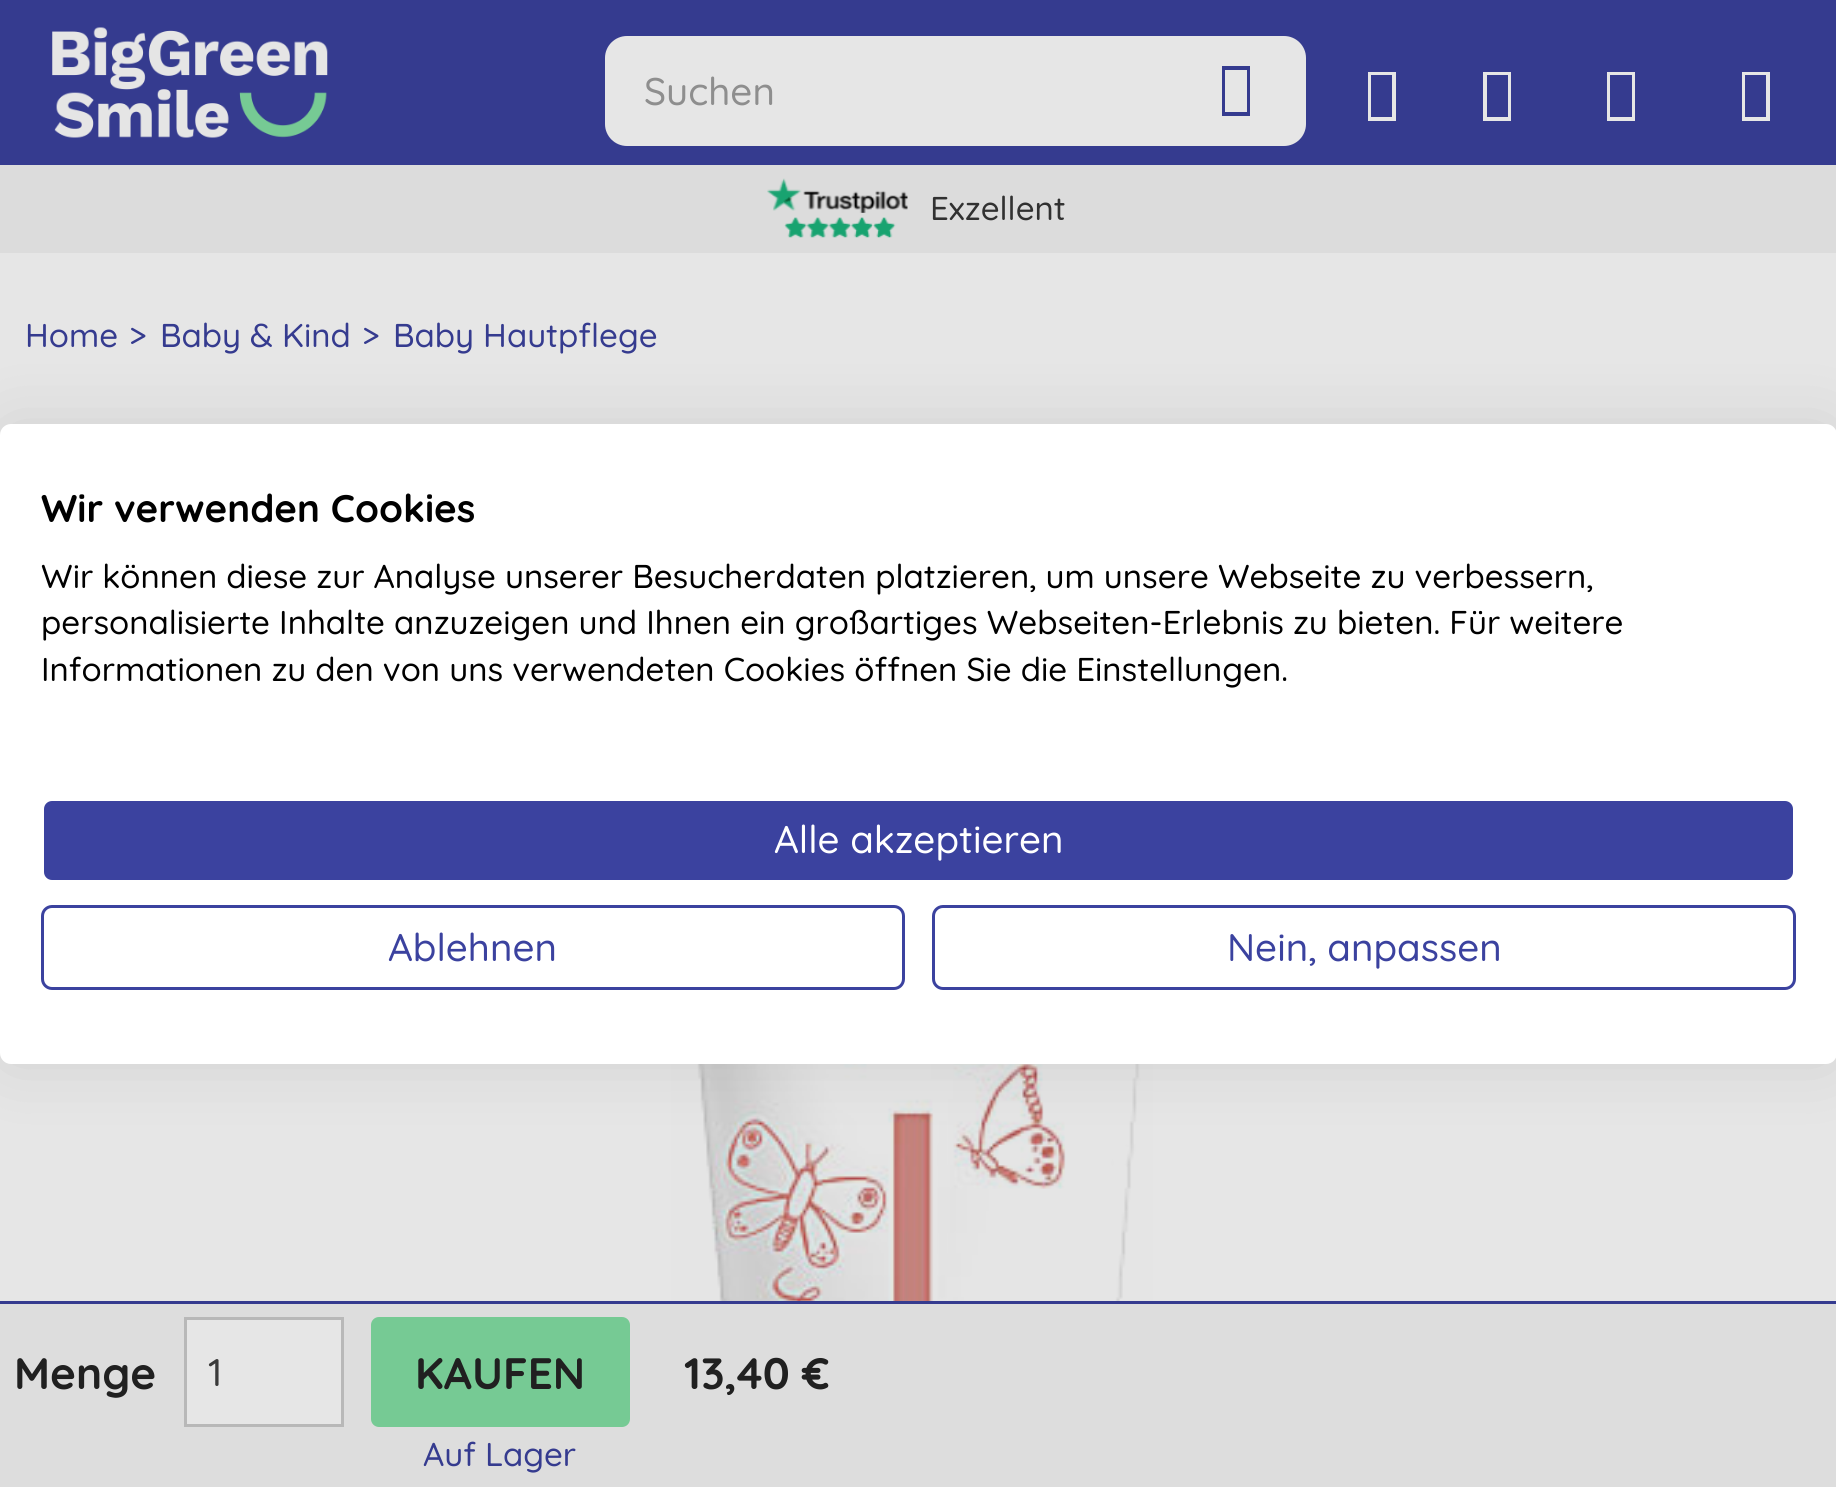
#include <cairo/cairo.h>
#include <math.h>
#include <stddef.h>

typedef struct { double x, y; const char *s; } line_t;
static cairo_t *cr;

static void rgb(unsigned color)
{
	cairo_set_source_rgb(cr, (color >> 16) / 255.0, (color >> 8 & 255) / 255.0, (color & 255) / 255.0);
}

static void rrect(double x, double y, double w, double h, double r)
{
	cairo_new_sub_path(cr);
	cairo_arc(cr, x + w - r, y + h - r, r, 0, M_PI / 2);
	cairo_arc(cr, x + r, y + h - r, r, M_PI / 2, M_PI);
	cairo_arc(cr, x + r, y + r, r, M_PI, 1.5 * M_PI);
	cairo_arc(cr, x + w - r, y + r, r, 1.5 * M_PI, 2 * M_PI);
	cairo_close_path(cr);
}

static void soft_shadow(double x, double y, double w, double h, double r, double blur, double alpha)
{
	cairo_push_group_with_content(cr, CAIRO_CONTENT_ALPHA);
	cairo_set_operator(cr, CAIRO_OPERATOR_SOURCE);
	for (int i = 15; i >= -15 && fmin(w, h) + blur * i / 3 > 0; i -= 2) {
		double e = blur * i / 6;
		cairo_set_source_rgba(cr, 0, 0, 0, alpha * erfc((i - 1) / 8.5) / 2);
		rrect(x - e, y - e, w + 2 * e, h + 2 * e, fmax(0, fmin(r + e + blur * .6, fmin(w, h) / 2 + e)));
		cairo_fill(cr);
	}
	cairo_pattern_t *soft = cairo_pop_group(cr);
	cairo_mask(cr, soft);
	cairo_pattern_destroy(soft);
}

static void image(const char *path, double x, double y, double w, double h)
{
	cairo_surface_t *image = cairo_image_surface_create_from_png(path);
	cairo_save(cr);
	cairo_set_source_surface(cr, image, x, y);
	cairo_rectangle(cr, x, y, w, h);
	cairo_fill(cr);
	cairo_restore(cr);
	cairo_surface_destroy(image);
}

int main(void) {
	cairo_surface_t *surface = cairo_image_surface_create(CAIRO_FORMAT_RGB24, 1836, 1487);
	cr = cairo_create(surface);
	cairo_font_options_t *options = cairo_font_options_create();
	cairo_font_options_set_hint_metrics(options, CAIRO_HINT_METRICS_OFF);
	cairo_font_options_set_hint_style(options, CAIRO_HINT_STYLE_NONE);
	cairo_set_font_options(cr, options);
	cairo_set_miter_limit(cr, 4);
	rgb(0xe6e6e6);
	cairo_paint(cr);
	rgb(0x353b8f);
	cairo_rectangle(cr, 0, 0, 1836, 165);
	cairo_fill(cr);
	image("img/1.png", 52, 27, 276, 111);
	rgb(0xe6e6e6);
	rrect(605, 36, 701, 110, 22);
	cairo_fill(cr);
	rgb(0x353b8f);
	cairo_new_path(cr);
	cairo_move_to(cr, 1222, 116);
	cairo_line_to(cr, 1222, 66);
	cairo_line_to(cr, 1250, 66);
	cairo_line_to(cr, 1250, 116);
	cairo_close_path(cr);
	cairo_move_to(cr, 1225, 112);
	cairo_line_to(cr, 1247, 112);
	cairo_line_to(cr, 1247, 70);
	cairo_line_to(cr, 1225, 70);
	cairo_close_path(cr);
	cairo_fill(cr);
	rgb(0xe6e6e6);
	cairo_new_path(cr);
	cairo_move_to(cr, 1368, 121);
	cairo_line_to(cr, 1368, 72);
	cairo_line_to(cr, 1396, 72);
	cairo_line_to(cr, 1396, 121);
	cairo_close_path(cr);
	cairo_move_to(cr, 1371, 117);
	cairo_line_to(cr, 1392, 117);
	cairo_line_to(cr, 1392, 75);
	cairo_line_to(cr, 1371, 75);
	cairo_close_path(cr);
	cairo_fill(cr);
	cairo_new_path(cr);
	cairo_move_to(cr, 1483, 121);
	cairo_line_to(cr, 1483, 72);
	cairo_line_to(cr, 1511, 72);
	cairo_line_to(cr, 1511, 121);
	cairo_close_path(cr);
	cairo_move_to(cr, 1487, 117);
	cairo_line_to(cr, 1508, 117);
	cairo_line_to(cr, 1508, 75);
	cairo_line_to(cr, 1487, 75);
	cairo_close_path(cr);
	cairo_fill(cr);
	cairo_new_path(cr);
	cairo_move_to(cr, 1607, 121);
	cairo_line_to(cr, 1607, 72);
	cairo_line_to(cr, 1635, 72);
	cairo_line_to(cr, 1635, 121);
	cairo_close_path(cr);
	cairo_move_to(cr, 1610, 117);
	cairo_line_to(cr, 1632, 117);
	cairo_line_to(cr, 1632, 75);
	cairo_line_to(cr, 1610, 75);
	cairo_close_path(cr);
	cairo_fill(cr);
	cairo_new_path(cr);
	cairo_move_to(cr, 1742, 121);
	cairo_line_to(cr, 1742, 72);
	cairo_line_to(cr, 1770, 72);
	cairo_line_to(cr, 1770, 121);
	cairo_close_path(cr);
	cairo_move_to(cr, 1745, 117);
	cairo_line_to(cr, 1766, 117);
	cairo_line_to(cr, 1766, 75);
	cairo_line_to(cr, 1745, 75);
	cairo_close_path(cr);
	cairo_fill(cr);
	rgb(0xdcdcdc);
	cairo_rectangle(cr, 0, 165, 1836, 88);
	cairo_fill(cr);
	image("img/2.png", 767, 178, 141, 60);
	image("img/3.png", 671, 1064, 482, 237);
	rgb(0xdddddd);
	cairo_rectangle(cr, 0, 1304, 1836, 183);
	cairo_fill(cr);
	rgb(0x353b8f);
	cairo_rectangle(cr, 0, 1301, 1836, 3);
	cairo_fill(cr);
	rgb(0xe6e6e6);
	cairo_rectangle(cr, 185.5, 1318.5, 157, 107);
	cairo_fill_preserve(cr);
	rgb(0xb8b8b8);
	cairo_set_line_width(cr, 3);
	cairo_stroke(cr);
	rgb(0x76ca94);
	rrect(371, 1317, 259, 110, 8);
	cairo_fill(cr);
	rgb(0x000000);
	soft_shadow(0, 424, 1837, 640, 11, 33, 0.1);
	rgb(0xffffff);
	rrect(0, 424, 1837, 640, 11);
	cairo_fill(cr);
	rgb(0x3b429f);
	rrect(42.5, 799.5, 1752, 82, 9.5);
	cairo_fill_preserve(cr);
	rgb(0xffffff);
	cairo_stroke(cr);
	rrect(42.5, 906.5, 861, 82, 9.5);
	rgb(0x3b429f);
	cairo_stroke(cr);
	rrect(933.5, 906.5, 861, 82, 9.5);
	cairo_stroke(cr);
	cairo_select_font_face(cr, "Quicksand Medium", CAIRO_FONT_SLANT_NORMAL, CAIRO_FONT_WEIGHT_NORMAL);
	cairo_set_font_size(cr, 38.5);
	rgb(0x8e8e8e);
	cairo_move_to(cr, 644, 105);
	cairo_show_text(cr, "Suchen");
	cairo_set_font_size(cr, 33);
	rgb(0x313131);
	cairo_move_to(cr, 930, 220);
	cairo_show_text(cr, "Exzellent");
	rgb(0x353b8f);
	{
		static const line_t items[] = {
			{25, 347, "Home"},
			{129, 347, ">"},
			{160, 347, "Baby & Kind"},
			{362, 347, ">"},
			{393, 347, "Baby Hautpflege"},
		};
		for (size_t i = 0; i < sizeof items / sizeof *items; i++) {
			cairo_move_to(cr, items[i].x, items[i].y);
			cairo_show_text(cr, items[i].s);
		}
	}
	cairo_select_font_face(cr, "Quicksand", CAIRO_FONT_SLANT_NORMAL, CAIRO_FONT_WEIGHT_BOLD);
	cairo_set_font_size(cr, 44);
	rgb(0x202020);
	cairo_move_to(cr, 14, 1389);
	cairo_show_text(cr, "Menge");
	cairo_select_font_face(cr, "Quicksand Medium", CAIRO_FONT_SLANT_NORMAL, CAIRO_FONT_WEIGHT_NORMAL);
	cairo_set_font_size(cr, 38.5);
	rgb(0x3a3a3a);
	cairo_move_to(cr, 208, 1386);
	cairo_show_text(cr, "1");
	cairo_select_font_face(cr, "Quicksand", CAIRO_FONT_SLANT_NORMAL, CAIRO_FONT_WEIGHT_BOLD);
	cairo_set_font_size(cr, 44);
	rgb(0x202020);
	cairo_move_to(cr, 415, 1389);
	cairo_show_text(cr, "KAUFEN");
	cairo_select_font_face(cr, "Quicksand Medium", CAIRO_FONT_SLANT_NORMAL, CAIRO_FONT_WEIGHT_NORMAL);
	cairo_set_font_size(cr, 33);
	rgb(0x353b8f);
	cairo_move_to(cr, 423, 1466);
	cairo_show_text(cr, "Auf Lager");
	cairo_select_font_face(cr, "Quicksand", CAIRO_FONT_SLANT_NORMAL, CAIRO_FONT_WEIGHT_BOLD);
	cairo_set_font_size(cr, 44);
	rgb(0x202020);
	cairo_move_to(cr, 684, 1389);
	cairo_show_text(cr, "13,40 €");
	cairo_set_font_size(cr, 38.5);
	rgb(0x000000);
	cairo_move_to(cr, 41, 522);
	cairo_show_text(cr, "Wir verwenden Cookies");
	cairo_select_font_face(cr, "Quicksand Medium", CAIRO_FONT_SLANT_NORMAL, CAIRO_FONT_WEIGHT_NORMAL);
	cairo_set_font_size(cr, 33);
	{
		static const line_t items[] = {
			{41, 588, "Wir können diese zur Analyse unserer Besucherdaten platzieren, um unsere Webseite zu verbessern,"},
			{41, 634, "personalisierte Inhalte anzuzeigen und Ihnen ein großartiges Webseiten-Erlebnis zu bieten. Für weitere"},
			{41, 681, "Informationen zu den von uns verwendeten Cookies öffnen Sie die Einstellungen."},
		};
		for (size_t i = 0; i < sizeof items / sizeof *items; i++) {
			cairo_move_to(cr, items[i].x, items[i].y);
			cairo_show_text(cr, items[i].s);
		}
	}
	cairo_set_font_size(cr, 38.5);
	rgb(0xffffff);
	cairo_move_to(cr, 774, 853);
	cairo_show_text(cr, "Alle akzeptieren");
	rgb(0x3b429f);
	cairo_move_to(cr, 388, 961);
	cairo_show_text(cr, "Ablehnen");
	cairo_move_to(cr, 1227, 961);
	cairo_show_text(cr, "Nein, anpassen");
	cairo_surface_write_to_png(surface, "page.png");
	cairo_font_options_destroy(options);
	cairo_destroy(cr);
	cairo_surface_destroy(surface);
	return 0;
}
